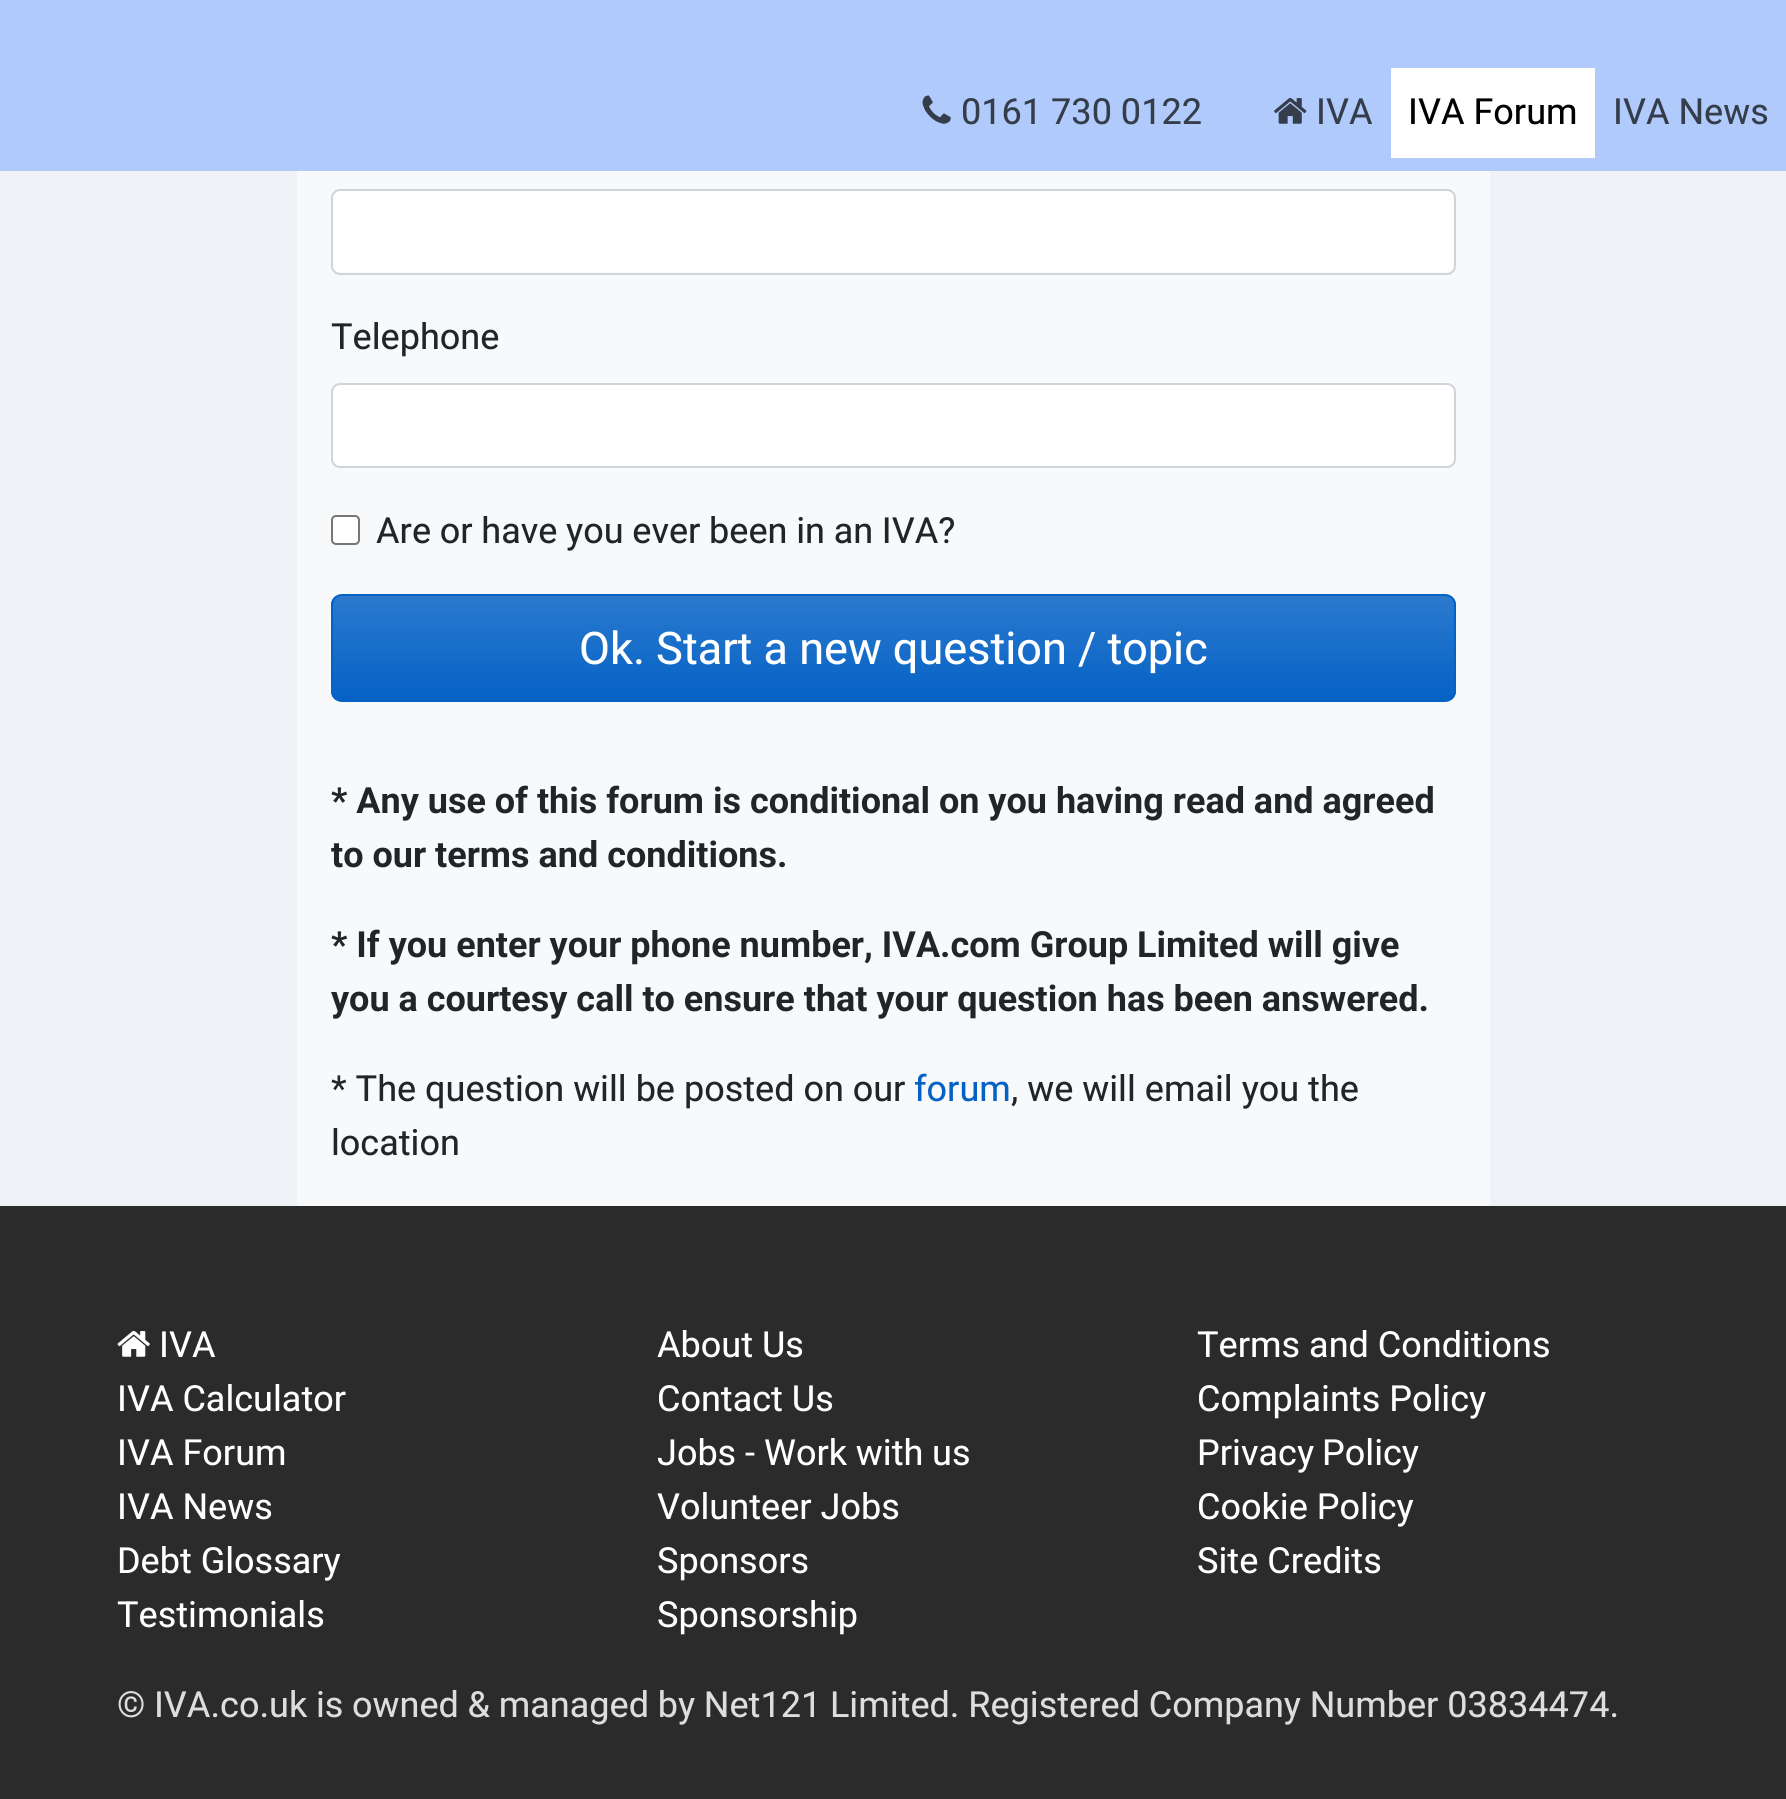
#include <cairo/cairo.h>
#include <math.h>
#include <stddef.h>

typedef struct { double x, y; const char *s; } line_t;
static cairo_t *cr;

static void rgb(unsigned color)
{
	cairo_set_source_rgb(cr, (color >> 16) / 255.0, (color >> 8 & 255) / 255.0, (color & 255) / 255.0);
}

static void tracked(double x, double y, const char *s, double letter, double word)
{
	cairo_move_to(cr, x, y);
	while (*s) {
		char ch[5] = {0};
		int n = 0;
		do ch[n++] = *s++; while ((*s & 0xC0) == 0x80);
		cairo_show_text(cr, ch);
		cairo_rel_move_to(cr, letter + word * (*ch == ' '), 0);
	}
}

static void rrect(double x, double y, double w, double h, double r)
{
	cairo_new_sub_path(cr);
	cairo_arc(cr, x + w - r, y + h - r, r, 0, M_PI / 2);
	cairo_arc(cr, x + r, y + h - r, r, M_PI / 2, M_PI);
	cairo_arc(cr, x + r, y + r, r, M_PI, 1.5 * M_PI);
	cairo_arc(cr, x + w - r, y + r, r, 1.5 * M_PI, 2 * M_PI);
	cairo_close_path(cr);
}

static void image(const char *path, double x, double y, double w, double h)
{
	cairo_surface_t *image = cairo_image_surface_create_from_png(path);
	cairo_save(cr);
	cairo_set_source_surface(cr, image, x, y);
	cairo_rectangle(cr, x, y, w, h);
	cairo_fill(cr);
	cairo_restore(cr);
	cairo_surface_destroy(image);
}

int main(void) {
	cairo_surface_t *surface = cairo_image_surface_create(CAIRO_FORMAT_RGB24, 1786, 1799);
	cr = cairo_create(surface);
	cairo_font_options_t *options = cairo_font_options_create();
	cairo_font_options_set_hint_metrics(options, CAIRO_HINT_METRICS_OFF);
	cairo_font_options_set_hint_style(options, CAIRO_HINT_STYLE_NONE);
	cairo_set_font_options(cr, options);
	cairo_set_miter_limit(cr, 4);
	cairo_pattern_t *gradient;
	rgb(0xeff3f8);
	cairo_paint(cr);
	rgb(0xb0cbfb);
	cairo_rectangle(cr, 0, 0, 1786, 171);
	cairo_fill(cr);
	image("img/1.png", 922, 95, 29, 29);
	image("img/2.png", 1274, 98, 33, 26);
	rgb(0xffffff);
	cairo_rectangle(cr, 1391, 68, 204, 90);
	cairo_fill(cr);
	rgb(0xf8f9fa);
	cairo_rectangle(cr, 297, 171, 1193, 1035);
	cairo_fill(cr);
	rgb(0xffffff);
	rrect(333, 191, 1121, 81, 7);
	cairo_fill(cr);
	rrect(332, 190, 1123, 84, 8);
	rgb(0xced4da);
	cairo_stroke(cr);
	rgb(0xffffff);
	rrect(332, 384, 1123, 83, 8);
	cairo_fill_preserve(cr);
	rgb(0xced4da);
	cairo_stroke(cr);
	rgb(0xffffff);
	rrect(332, 516, 27, 28, 4);
	cairo_fill_preserve(cr);
	rgb(0x767676);
	cairo_stroke(cr);
	cairo_save(cr);
	rrect(331, 594, 1125, 108, 11);
	cairo_clip(cr);
	gradient = cairo_pattern_create_linear(893, 596, 893, 700);
	cairo_pattern_add_color_stop_rgba(gradient, 0, 0.169, 0.478, 0.808, 1);
	cairo_pattern_add_color_stop_rgba(gradient, 1, 0.02, 0.384, 0.773, 1);
	cairo_set_source(cr, gradient);
	cairo_pattern_destroy(gradient);
	cairo_rectangle(cr, 331, 596, 1125, 104);
	cairo_fill(cr);
	cairo_restore(cr);
	rrect(332, 595, 1123, 106, 10);
	rgb(0x0562c5);
	cairo_stroke(cr);
	rgb(0x2b2b2b);
	cairo_rectangle(cr, 0, 1206, 1786, 593);
	cairo_fill(cr);
	image("img/3.png", 117, 1331, 33, 26);
	cairo_select_font_face(cr, "Roboto", CAIRO_FONT_SLANT_NORMAL, CAIRO_FONT_WEIGHT_NORMAL);
	cairo_set_font_size(cr, 36);
	rgb(0x353d4b);
	cairo_move_to(cr, 961, 124);
	cairo_show_text(cr, "0161 730 0122");
	cairo_move_to(cr, 1316, 124);
	cairo_show_text(cr, "IVA");
	rgb(0x000000);
	cairo_move_to(cr, 1408, 124);
	cairo_show_text(cr, "IVA Forum");
	rgb(0x353d4b);
	cairo_move_to(cr, 1613, 124);
	cairo_show_text(cr, "IVA News");
	rgb(0x212529);
	cairo_move_to(cr, 331, 349);
	cairo_show_text(cr, "Telephone");
	tracked(376, 543, "Are or have you ever been in an IVA?", 0, -0.25);
	cairo_set_font_size(cr, 45);
	rgb(0xffffff);
	cairo_move_to(cr, 579, 664);
	cairo_show_text(cr, "Ok. Start a new question / topic");
	cairo_select_font_face(cr, "Roboto", CAIRO_FONT_SLANT_NORMAL, CAIRO_FONT_WEIGHT_BOLD);
	cairo_set_font_size(cr, 36);
	rgb(0x212529);
	{
		static const line_t items[] = {
			{331, 813, "* Any use of this forum is conditional on you having read and agreed"},
			{331, 867, "to our terms and conditions."},
			{331, 957, "* If you enter your phone number, IVA.com Group Limited will give"},
			{331, 1011, "you a courtesy call to ensure that your question has been answered."},
		};
		for (size_t i = 0; i < sizeof items / sizeof *items; i++) {
			cairo_move_to(cr, items[i].x, items[i].y);
			cairo_show_text(cr, items[i].s);
		}
	}
	cairo_select_font_face(cr, "Roboto", CAIRO_FONT_SLANT_NORMAL, CAIRO_FONT_WEIGHT_NORMAL);
	cairo_move_to(cr, 331, 1101);
	cairo_show_text(cr, "* The question will be posted on our");
	rgb(0x0562c5);
	cairo_move_to(cr, 914, 1101);
	cairo_show_text(cr, "forum");
	rgb(0x212529);
	cairo_move_to(cr, 1011, 1101);
	cairo_show_text(cr, ", we will email you the");
	cairo_move_to(cr, 331, 1155);
	cairo_show_text(cr, "location");
	rgb(0xffffff);
	{
		static const line_t items[] = {
			{159, 1357, "IVA"},
			{117, 1411, "IVA Calculator"},
			{117, 1465, "IVA Forum"},
			{117, 1519, "IVA News"},
			{117, 1573, "Debt Glossary"},
			{117, 1627, "Testimonials"},
			{657, 1357, "About Us"},
			{657, 1411, "Contact Us"},
		};
		for (size_t i = 0; i < sizeof items / sizeof *items; i++) {
			cairo_move_to(cr, items[i].x, items[i].y);
			cairo_show_text(cr, items[i].s);
		}
	}
	tracked(657, 1465, "Jobs - Work with us", 0, -0.25);
	{
		static const line_t items[] = {
			{657, 1519, "Volunteer Jobs"},
			{657, 1573, "Sponsors"},
			{657, 1627, "Sponsorship"},
			{1197, 1357, "Terms and Conditions"},
			{1197, 1411, "Complaints Policy"},
		};
		for (size_t i = 0; i < sizeof items / sizeof *items; i++) {
			cairo_move_to(cr, items[i].x, items[i].y);
			cairo_show_text(cr, items[i].s);
		}
	}
	tracked(1197, 1465, "Privacy Policy", 0, -1);
	cairo_move_to(cr, 1197, 1519);
	cairo_show_text(cr, "Cookie Policy");
	cairo_move_to(cr, 1197, 1573);
	cairo_show_text(cr, "Site Credits");
	rgb(0xdddddd);
	tracked(117, 1717, "© IVA.co.uk is owned & managed by Net121 Limited. Registered Company Number 03834474.", 0, -0.25);
	cairo_surface_write_to_png(surface, "page.png");
	cairo_font_options_destroy(options);
	cairo_destroy(cr);
	cairo_surface_destroy(surface);
	return 0;
}
